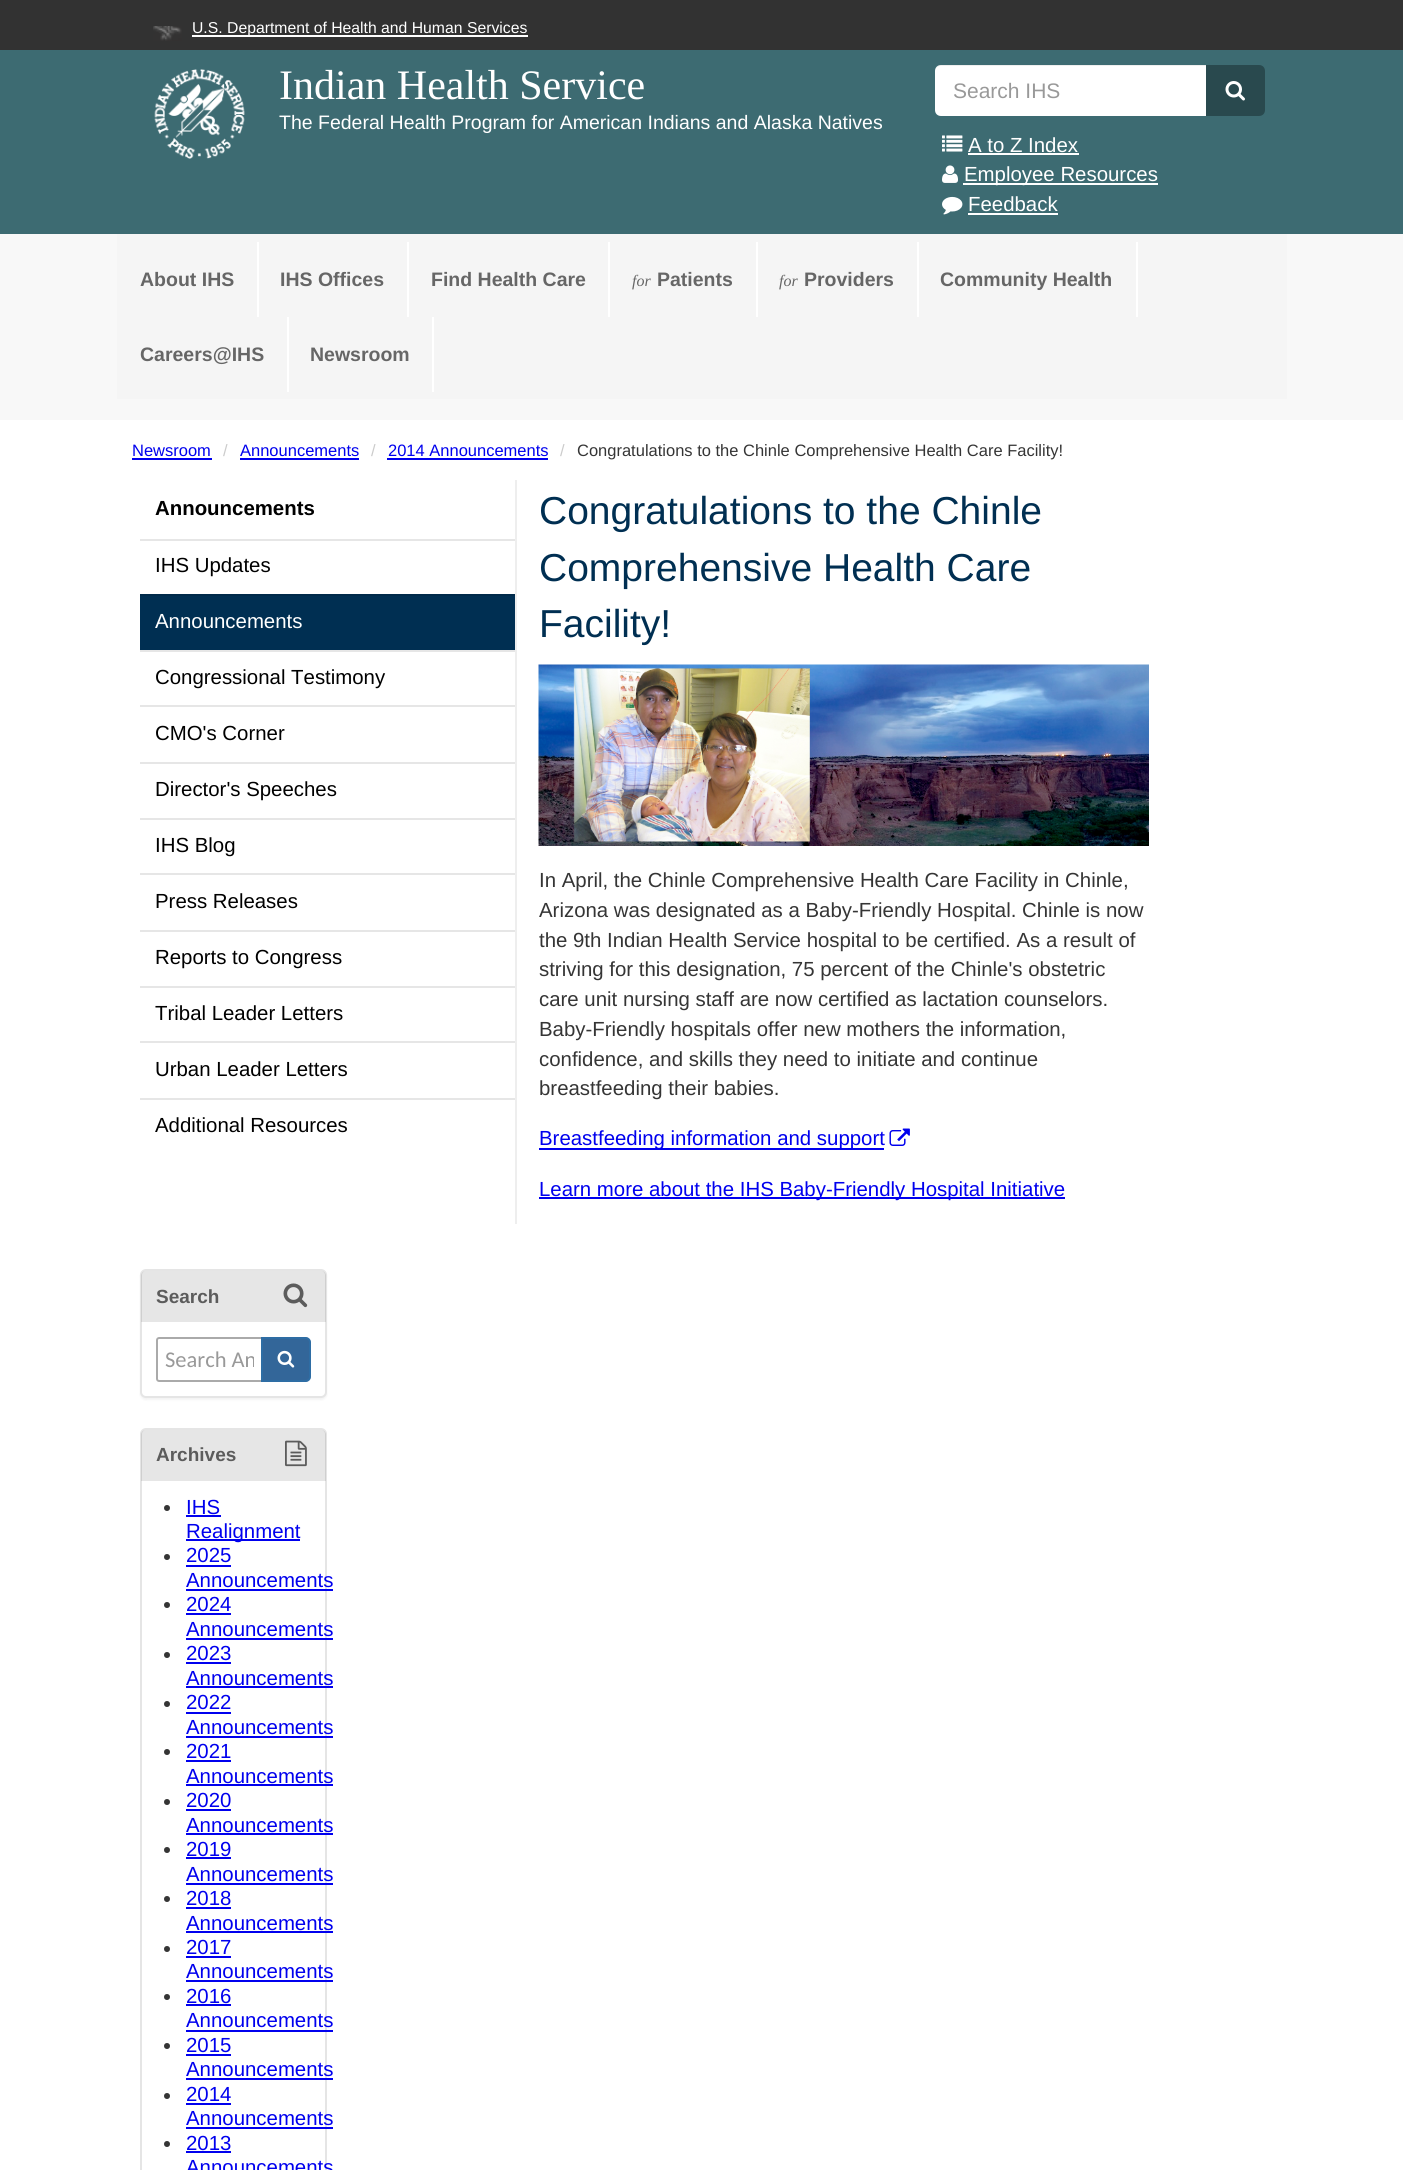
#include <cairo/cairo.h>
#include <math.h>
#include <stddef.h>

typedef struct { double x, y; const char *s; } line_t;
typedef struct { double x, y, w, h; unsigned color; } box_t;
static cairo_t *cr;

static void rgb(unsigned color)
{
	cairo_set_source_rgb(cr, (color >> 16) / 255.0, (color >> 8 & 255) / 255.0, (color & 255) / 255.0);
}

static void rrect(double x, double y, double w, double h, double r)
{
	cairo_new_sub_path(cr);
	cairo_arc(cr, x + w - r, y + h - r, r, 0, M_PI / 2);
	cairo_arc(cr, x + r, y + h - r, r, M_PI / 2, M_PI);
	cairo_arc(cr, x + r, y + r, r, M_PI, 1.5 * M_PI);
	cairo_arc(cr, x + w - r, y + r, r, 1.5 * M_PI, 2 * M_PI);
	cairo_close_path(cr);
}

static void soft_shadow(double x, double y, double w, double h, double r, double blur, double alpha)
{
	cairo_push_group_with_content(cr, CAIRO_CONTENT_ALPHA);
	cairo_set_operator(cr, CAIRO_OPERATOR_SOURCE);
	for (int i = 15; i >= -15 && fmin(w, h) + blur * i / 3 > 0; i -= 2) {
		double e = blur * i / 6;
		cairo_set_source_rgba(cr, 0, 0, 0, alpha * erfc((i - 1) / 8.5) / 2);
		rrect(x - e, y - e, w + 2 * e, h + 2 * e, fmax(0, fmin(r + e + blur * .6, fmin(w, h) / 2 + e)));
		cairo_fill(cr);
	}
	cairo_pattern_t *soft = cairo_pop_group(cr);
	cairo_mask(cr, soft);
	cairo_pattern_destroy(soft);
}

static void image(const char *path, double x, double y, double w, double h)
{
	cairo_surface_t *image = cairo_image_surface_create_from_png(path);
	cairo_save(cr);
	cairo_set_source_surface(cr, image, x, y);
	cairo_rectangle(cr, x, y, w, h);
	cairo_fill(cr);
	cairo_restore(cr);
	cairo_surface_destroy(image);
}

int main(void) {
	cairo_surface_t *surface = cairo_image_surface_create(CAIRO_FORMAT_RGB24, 1403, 2170);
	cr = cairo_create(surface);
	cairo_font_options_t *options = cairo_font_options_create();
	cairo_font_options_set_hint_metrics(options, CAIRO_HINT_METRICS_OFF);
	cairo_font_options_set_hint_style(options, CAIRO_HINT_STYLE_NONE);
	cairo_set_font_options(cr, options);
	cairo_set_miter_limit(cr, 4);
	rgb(0xffffff);
	cairo_paint(cr);
	rgb(0x323232);
	cairo_rectangle(cr, 0, 0, 1403, 50);
	cairo_fill(cr);
	image("img/1.png", 153, 26, 29, 15);
	rgb(0xffffff);
	cairo_rectangle(cr, 192, 35, 336, 2);
	cairo_fill(cr);
	rgb(0x3d6b72);
	cairo_rectangle(cr, 0, 50, 1403, 184);
	cairo_fill(cr);
	image("img/2.png", 154, 69, 91, 90);
	rgb(0xffffff);
	cairo_new_path(cr);
	cairo_move_to(cr, 941, 65);
	cairo_line_to(cr, 1206, 65);
	cairo_line_to(cr, 1206, 116);
	cairo_line_to(cr, 941, 116);
	cairo_curve_to(cr, 937.5, 116, 935, 113.5, 935, 110);
	cairo_line_to(cr, 935, 71);
	cairo_curve_to(cr, 935, 67.5, 937.5, 65, 941, 65);
	cairo_close_path(cr);
	cairo_fill(cr);
	cairo_set_source_rgba(cr, 0, 0, 0, 0.07);
	cairo_new_path(cr);
	cairo_move_to(cr, 940, 66);
	cairo_line_to(cr, 1206, 66);
	cairo_line_to(cr, 1206, 65);
	cairo_line_to(cr, 941, 65);
	cairo_curve_to(cr, 939, 65, 937, 66, 936, 68);
	cairo_curve_to(cr, 937, 67, 939, 66, 940, 66);
	cairo_close_path(cr);
	cairo_fill(cr);
	rgb(0x29494e);
	cairo_new_path(cr);
	cairo_move_to(cr, 1206, 65);
	cairo_line_to(cr, 1259, 65);
	cairo_curve_to(cr, 1262.5, 65, 1265, 67.5, 1265, 71);
	cairo_line_to(cr, 1265, 110);
	cairo_curve_to(cr, 1265, 113.5, 1262.5, 116, 1259, 116);
	cairo_line_to(cr, 1206, 116);
	cairo_close_path(cr);
	cairo_fill(cr);
	image("img/3.png", 1225, 81, 20, 20);
	image("img/4.png", 942, 135, 21, 17);
	rgb(0xffffff);
	cairo_rectangle(cr, 968, 153, 111, 2);
	cairo_fill(cr);
	image("img/5.png", 942, 165, 16, 18);
	cairo_rectangle(cr, 963, 183, 195, 2);
	cairo_fill(cr);
	image("img/6.png", 942, 196, 21, 19);
	{
		static const box_t items[] = {
			{968, 213, 90, 2, 0xffffff},
			{0, 234, 1403, 186, 0xf8f8f8},
			{117, 234, 1170, 165, 0xf5f5f5},
			{257, 242, 2, 75, 0xffffff},
			{407, 242, 2, 75, 0xffffff},
			{608, 242, 2, 75, 0xffffff},
			{756, 242, 2, 75, 0xffffff},
			{917, 242, 2, 75, 0xffffff},
			{1136, 242, 2, 75, 0xffffff},
			{287, 317, 2, 75, 0xffffff},
			{432, 317, 2, 75, 0xffffff},
			{132, 458, 80, 2, 0x0000ee},
			{240, 458, 119, 2, 0x0000ee},
			{387, 458, 161, 2, 0x0000ee},
			{140, 539, 375, 2, 0xe6e6e6},
			{140, 596, 375, 54, 0x002f52},
			{140, 594, 375, 2, 0x002a4a},
			{140, 650, 375, 2, 0xe6e6e6},
			{140, 705, 375, 2, 0xe6e6e6},
			{140, 762, 375, 2, 0xe6e6e6},
			{140, 818, 375, 2, 0xe6e6e6},
			{140, 873, 375, 2, 0xe6e6e6},
			{140, 930, 375, 2, 0xe6e6e6},
			{140, 986, 375, 2, 0xe6e6e6},
			{140, 1041, 375, 2, 0xe6e6e6},
			{140, 1098, 375, 2, 0xe6e6e6},
			{515, 480, 2, 744, 0xeeeeee},
		};
		for (size_t i = 0; i < sizeof items / sizeof *items; i++) {
			rgb(items[i].color);
			cairo_rectangle(cr, items[i].x, items[i].y, items[i].w, items[i].h);
			cairo_fill(cr);
		}
	}
	image("img/7.png", 538, 664, 611, 182);
	rgb(0x0000ee);
	cairo_rectangle(cr, 539, 1148, 345, 2);
	cairo_fill(cr);
	image("img/8.png", 889, 1128, 21, 18);
	cairo_rectangle(cr, 539, 1197, 526, 2);
	cairo_fill(cr);
	rgb(0x000000);
	soft_shadow(140, 1271, 187, 129, 6, 1, 0.05);
	rgb(0xffffff);
	rrect(141, 1270, 185, 127, 5);
	cairo_fill_preserve(cr);
	rgb(0xe5e5e5);
	cairo_stroke(cr);
	cairo_set_source_rgba(cr, 0, 0, 0, 0.1);
	cairo_new_path(cr);
	cairo_move_to(cr, 146, 1271);
	cairo_line_to(cr, 321, 1271);
	cairo_curve_to(cr, 324, 1271, 326, 1273, 326, 1276);
	cairo_line_to(cr, 326, 1322);
	cairo_line_to(cr, 141, 1322);
	cairo_line_to(cr, 141, 1276);
	cairo_curve_to(cr, 141, 1273, 143, 1271, 146, 1271);
	cairo_close_path(cr);
	cairo_fill(cr);
	image("img/9.png", 283, 1283, 25, 25);
	cairo_new_path(cr);
	cairo_move_to(cr, 159, 1338);
	cairo_line_to(cr, 262, 1338);
	cairo_line_to(cr, 262, 1381);
	cairo_line_to(cr, 159, 1381);
	cairo_curve_to(cr, 158, 1381, 157, 1380, 157, 1379);
	cairo_line_to(cr, 157, 1340);
	cairo_curve_to(cr, 157, 1339, 158, 1338, 159, 1338);
	cairo_close_path(cr);
	rgb(0xaaaaaa);
	cairo_stroke(cr);
	rgb(0x336699);
	cairo_new_path(cr);
	cairo_move_to(cr, 262, 1338);
	cairo_line_to(cr, 306, 1338);
	cairo_curve_to(cr, 308, 1338, 310, 1340, 310, 1342);
	cairo_line_to(cr, 310, 1377);
	cairo_curve_to(cr, 310, 1379, 308, 1381, 306, 1381);
	cairo_line_to(cr, 262, 1381);
	cairo_close_path(cr);
	cairo_fill_preserve(cr);
	rgb(0x2e6da4);
	cairo_stroke(cr);
	image("img/10.png", 277, 1350, 18, 18);
	rrect(141, 1429, 185, 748, 5);
	rgb(0xe5e5e5);
	cairo_stroke(cr);
	cairo_set_source_rgba(cr, 0, 0, 0, 0.1);
	cairo_new_path(cr);
	cairo_move_to(cr, 146, 1430);
	cairo_line_to(cr, 321, 1430);
	cairo_curve_to(cr, 324, 1430, 326, 1432, 326, 1435);
	cairo_line_to(cr, 326, 1481);
	cairo_line_to(cr, 141, 1481);
	cairo_line_to(cr, 141, 1435);
	cairo_curve_to(cr, 141, 1432, 143, 1430, 146, 1430);
	cairo_close_path(cr);
	cairo_fill(cr);
	image("img/11.png", 285, 1440, 22, 27);
	rgb(0x353535);
	cairo_arc(cr, 167, 1508, 3, 0, 2 * M_PI);
	cairo_fill(cr);
	rgb(0x0000ee);
	cairo_rectangle(cr, 186, 1515, 35, 2);
	cairo_fill(cr);
	cairo_rectangle(cr, 186, 1539, 114, 2);
	cairo_fill(cr);
	rgb(0x353535);
	cairo_arc(cr, 167, 1557, 3, 0, 2 * M_PI);
	cairo_fill(cr);
	rgb(0x0000ee);
	cairo_rectangle(cr, 186, 1565, 45, 2);
	cairo_fill(cr);
	cairo_rectangle(cr, 186, 1589, 147, 2);
	cairo_fill(cr);
	rgb(0x353535);
	cairo_arc(cr, 167, 1605, 3, 0, 2 * M_PI);
	cairo_fill(cr);
	rgb(0x0000ee);
	cairo_rectangle(cr, 186, 1613, 45, 2);
	cairo_fill(cr);
	cairo_rectangle(cr, 186, 1638, 147, 2);
	cairo_fill(cr);
	rgb(0x353535);
	cairo_arc(cr, 167, 1655, 3, 0, 2 * M_PI);
	cairo_fill(cr);
	rgb(0x0000ee);
	cairo_rectangle(cr, 186, 1662, 45, 2);
	cairo_fill(cr);
	cairo_rectangle(cr, 186, 1686, 147, 2);
	cairo_fill(cr);
	rgb(0x353535);
	cairo_arc(cr, 167, 1704, 3, 0, 2 * M_PI);
	cairo_fill(cr);
	rgb(0x0000ee);
	cairo_rectangle(cr, 186, 1712, 45, 2);
	cairo_fill(cr);
	cairo_rectangle(cr, 186, 1736, 147, 2);
	cairo_fill(cr);
	rgb(0x353535);
	cairo_arc(cr, 167, 1752, 3, 0, 2 * M_PI);
	cairo_fill(cr);
	rgb(0x0000ee);
	cairo_rectangle(cr, 186, 1760, 45, 2);
	cairo_fill(cr);
	cairo_rectangle(cr, 186, 1784, 147, 2);
	cairo_fill(cr);
	rgb(0x353535);
	cairo_arc(cr, 167, 1802, 3, 0, 2 * M_PI);
	cairo_fill(cr);
	rgb(0x0000ee);
	cairo_rectangle(cr, 186, 1809, 45, 2);
	cairo_fill(cr);
	cairo_rectangle(cr, 186, 1833, 147, 2);
	cairo_fill(cr);
	rgb(0x353535);
	cairo_arc(cr, 167, 1850, 3, 0, 2 * M_PI);
	cairo_fill(cr);
	rgb(0x0000ee);
	cairo_rectangle(cr, 186, 1857, 45, 2);
	cairo_fill(cr);
	cairo_rectangle(cr, 186, 1883, 147, 2);
	cairo_fill(cr);
	rgb(0x353535);
	cairo_arc(cr, 167, 1899, 3, 0, 2 * M_PI);
	cairo_fill(cr);
	rgb(0x0000ee);
	cairo_rectangle(cr, 186, 1907, 45, 2);
	cairo_fill(cr);
	cairo_rectangle(cr, 186, 1931, 147, 2);
	cairo_fill(cr);
	rgb(0x353535);
	cairo_arc(cr, 167, 1949, 3, 0, 2 * M_PI);
	cairo_fill(cr);
	rgb(0x0000ee);
	cairo_rectangle(cr, 186, 1956, 45, 2);
	cairo_fill(cr);
	cairo_rectangle(cr, 186, 1980, 147, 2);
	cairo_fill(cr);
	rgb(0x353535);
	cairo_arc(cr, 167, 1997, 3, 0, 2 * M_PI);
	cairo_fill(cr);
	rgb(0x0000ee);
	cairo_rectangle(cr, 186, 2004, 45, 2);
	cairo_fill(cr);
	cairo_rectangle(cr, 186, 2030, 147, 2);
	cairo_fill(cr);
	rgb(0x353535);
	cairo_arc(cr, 167, 2046, 3, 0, 2 * M_PI);
	cairo_fill(cr);
	rgb(0x0000ee);
	cairo_rectangle(cr, 186, 2054, 45, 2);
	cairo_fill(cr);
	cairo_rectangle(cr, 186, 2078, 147, 2);
	cairo_fill(cr);
	rgb(0x353535);
	cairo_arc(cr, 167, 2096, 3, 0, 2 * M_PI);
	cairo_fill(cr);
	rgb(0x0000ee);
	cairo_rectangle(cr, 186, 2103, 45, 2);
	cairo_fill(cr);
	cairo_rectangle(cr, 186, 2127, 147, 2);
	cairo_fill(cr);
	rgb(0x353535);
	cairo_arc(cr, 167, 2144, 3, 0, 2 * M_PI);
	cairo_fill(cr);
	rgb(0x0000ee);
	cairo_rectangle(cr, 186, 2151, 45, 2);
	cairo_fill(cr);
	cairo_select_font_face(cr, "Liberation Sans", CAIRO_FONT_SLANT_NORMAL, CAIRO_FONT_WEIGHT_NORMAL);
	cairo_set_font_size(cr, 15.75);
	rgb(0xffffff);
	cairo_move_to(cr, 192, 33);
	cairo_show_text(cr, "U.S. Department of Health and Human Services");
	cairo_select_font_face(cr, "Liberation Serif", CAIRO_FONT_SLANT_NORMAL, CAIRO_FONT_WEIGHT_NORMAL);
	cairo_set_font_size(cr, 42);
	cairo_move_to(cr, 279, 99);
	cairo_show_text(cr, "Indian Health Service");
	cairo_select_font_face(cr, "Liberation Sans", CAIRO_FONT_SLANT_NORMAL, CAIRO_FONT_WEIGHT_NORMAL);
	cairo_set_font_size(cr, 19.5);
	cairo_move_to(cr, 279, 129);
	cairo_show_text(cr, "The Federal Health Program for American Indians and Alaska Natives");
	cairo_set_font_size(cr, 21);
	rgb(0x999999);
	cairo_move_to(cr, 953, 98);
	cairo_show_text(cr, "Search IHS");
	cairo_set_font_size(cr, 20.4);
	rgb(0xffffff);
	{
		static const line_t items[] = {
			{968, 152, "A to Z Index"},
			{964, 181, "Employee Resources"},
			{968, 211, "Feedback"},
		};
		for (size_t i = 0; i < sizeof items / sizeof *items; i++) {
			cairo_move_to(cr, items[i].x, items[i].y);
			cairo_show_text(cr, items[i].s);
		}
	}
	cairo_select_font_face(cr, "Liberation Sans", CAIRO_FONT_SLANT_NORMAL, CAIRO_FONT_WEIGHT_BOLD);
	cairo_set_font_size(cr, 19.5);
	rgb(0x666666);
	{
		static const line_t items[] = {
			{140, 286, "About IHS"},
			{280, 286, "IHS Offices"},
			{431, 286, "Find Health Care"},
		};
		for (size_t i = 0; i < sizeof items / sizeof *items; i++) {
			cairo_move_to(cr, items[i].x, items[i].y);
			cairo_show_text(cr, items[i].s);
		}
	}
	cairo_select_font_face(cr, "Liberation Serif", CAIRO_FONT_SLANT_ITALIC, CAIRO_FONT_WEIGHT_NORMAL);
	cairo_set_font_size(cr, 16);
	cairo_move_to(cr, 632, 286);
	cairo_show_text(cr, "for");
	cairo_select_font_face(cr, "Liberation Sans", CAIRO_FONT_SLANT_NORMAL, CAIRO_FONT_WEIGHT_BOLD);
	cairo_set_font_size(cr, 19.5);
	cairo_move_to(cr, 657, 286);
	cairo_show_text(cr, "Patients");
	cairo_select_font_face(cr, "Liberation Serif", CAIRO_FONT_SLANT_ITALIC, CAIRO_FONT_WEIGHT_NORMAL);
	cairo_set_font_size(cr, 16);
	cairo_move_to(cr, 779, 286);
	cairo_show_text(cr, "for");
	cairo_select_font_face(cr, "Liberation Sans", CAIRO_FONT_SLANT_NORMAL, CAIRO_FONT_WEIGHT_BOLD);
	cairo_set_font_size(cr, 19.5);
	{
		static const line_t items[] = {
			{804, 286, "Providers"},
			{940, 286, "Community Health"},
			{140, 361, "Careers@IHS"},
			{310, 361, "Newsroom"},
		};
		for (size_t i = 0; i < sizeof items / sizeof *items; i++) {
			cairo_move_to(cr, items[i].x, items[i].y);
			cairo_show_text(cr, items[i].s);
		}
	}
	cairo_select_font_face(cr, "Liberation Sans", CAIRO_FONT_SLANT_NORMAL, CAIRO_FONT_WEIGHT_NORMAL);
	cairo_set_font_size(cr, 16.5);
	rgb(0x0000ee);
	cairo_move_to(cr, 132, 456);
	cairo_show_text(cr, "Newsroom");
	rgb(0xcccccc);
	cairo_move_to(cr, 223, 456);
	cairo_show_text(cr, "/");
	rgb(0x0000ee);
	cairo_move_to(cr, 240, 456);
	cairo_show_text(cr, "Announcements");
	rgb(0xcccccc);
	cairo_move_to(cr, 371, 456);
	cairo_show_text(cr, "/");
	rgb(0x0000ee);
	cairo_move_to(cr, 388, 456);
	cairo_show_text(cr, "2014 Announcements");
	rgb(0xcccccc);
	cairo_move_to(cr, 560, 456);
	cairo_show_text(cr, "/");
	rgb(0x353535);
	cairo_move_to(cr, 577, 456);
	cairo_show_text(cr, "Congratulations to the Chinle Comprehensive Health Care Facility!");
	cairo_select_font_face(cr, "Liberation Sans", CAIRO_FONT_SLANT_NORMAL, CAIRO_FONT_WEIGHT_BOLD);
	cairo_set_font_size(cr, 20.4);
	rgb(0x000000);
	cairo_move_to(cr, 155, 515);
	cairo_show_text(cr, "Announcements");
	cairo_select_font_face(cr, "Liberation Sans", CAIRO_FONT_SLANT_NORMAL, CAIRO_FONT_WEIGHT_NORMAL);
	cairo_move_to(cr, 155, 572);
	cairo_show_text(cr, "IHS Updates");
	rgb(0xffffff);
	cairo_move_to(cr, 155, 628);
	cairo_show_text(cr, "Announcements");
	rgb(0x000000);
	{
		static const line_t items[] = {
			{155, 684, "Congressional Testimony"},
			{155, 740, "CMO's Corner"},
			{155, 796, "Director's Speeches"},
			{155, 852, "IHS Blog"},
			{155, 908, "Press Releases"},
			{155, 964, "Reports to Congress"},
			{155, 1020, "Tribal Leader Letters"},
			{155, 1076, "Urban Leader Letters"},
			{155, 1132, "Additional Resources"},
		};
		for (size_t i = 0; i < sizeof items / sizeof *items; i++) {
			cairo_move_to(cr, items[i].x, items[i].y);
			cairo_show_text(cr, items[i].s);
		}
	}
	cairo_set_font_size(cr, 39);
	rgb(0x002f52);
	{
		static const line_t items[] = {
			{539, 524, "Congratulations to the Chinle"},
			{539, 581, "Comprehensive Health Care"},
			{539, 637, "Facility!"},
		};
		for (size_t i = 0; i < sizeof items / sizeof *items; i++) {
			cairo_move_to(cr, items[i].x, items[i].y);
			cairo_show_text(cr, items[i].s);
		}
	}
	cairo_set_font_size(cr, 20.4);
	rgb(0x353535);
	{
		static const line_t items[] = {
			{539, 887, "In April, the Chinle Comprehensive Health Care Facility in Chinle,"},
			{539, 917, "Arizona was designated as a Baby-Friendly Hospital. Chinle is now"},
			{539, 947, "the 9th Indian Health Service hospital to be certified. As a result of"},
			{539, 976, "striving for this designation, 75 percent of the Chinle's obstetric"},
			{539, 1006, "care unit nursing staff are now certified as lactation counselors."},
			{539, 1036, "Baby-Friendly hospitals offer new mothers the information,"},
			{539, 1066, "confidence, and skills they need to initiate and continue"},
			{539, 1095, "breastfeeding their babies."},
		};
		for (size_t i = 0; i < sizeof items / sizeof *items; i++) {
			cairo_move_to(cr, items[i].x, items[i].y);
			cairo_show_text(cr, items[i].s);
		}
	}
	rgb(0x0000ee);
	cairo_move_to(cr, 539, 1145);
	cairo_show_text(cr, "Breastfeeding information and support");
	cairo_move_to(cr, 539, 1196);
	cairo_show_text(cr, "Learn more about the IHS Baby-Friendly Hospital Initiative");
	cairo_select_font_face(cr, "Liberation Sans", CAIRO_FONT_SLANT_NORMAL, CAIRO_FONT_WEIGHT_BOLD);
	cairo_set_font_size(cr, 19);
	rgb(0x5c5c5c);
	cairo_move_to(cr, 156, 1303);
	cairo_show_text(cr, "Search");
	cairo_save(cr);
	cairo_rectangle(cr, 165, 1346, 89, 27);
	cairo_clip(cr);
	cairo_select_font_face(cr, "Carlito", CAIRO_FONT_SLANT_NORMAL, CAIRO_FONT_WEIGHT_NORMAL);
	cairo_set_font_size(cr, 22.5);
	rgb(0x999999);
	cairo_move_to(cr, 165, 1367);
	cairo_show_text(cr, "Search An");
	cairo_restore(cr);
	cairo_move_to(cr, 156, 1461);
	cairo_show_text(cr, "Archives");
	cairo_select_font_face(cr, "Liberation Sans", CAIRO_FONT_SLANT_NORMAL, CAIRO_FONT_WEIGHT_NORMAL);
	cairo_set_font_size(cr, 20.4);
	rgb(0x0000ee);
	{
		static const line_t items[] = {
			{186, 1514, "IHS"},
			{186, 1538, "Realignment"},
			{186, 1562, "2025"},
			{186, 1587, "Announcements"},
			{186, 1611, "2024"},
			{186, 1636, "Announcements"},
			{186, 1660, "2023"},
			{186, 1685, "Announcements"},
			{186, 1709, "2022"},
			{186, 1734, "Announcements"},
			{186, 1758, "2021"},
			{186, 1783, "Announcements"},
			{186, 1807, "2020"},
			{186, 1832, "Announcements"},
			{186, 1856, "2019"},
			{186, 1881, "Announcements"},
			{186, 1905, "2018"},
			{186, 1930, "Announcements"},
			{186, 1954, "2017"},
			{186, 1978, "Announcements"},
			{186, 2003, "2016"},
			{186, 2027, "Announcements"},
			{186, 2052, "2015"},
			{186, 2076, "Announcements"},
			{186, 2101, "2014"},
			{186, 2125, "Announcements"},
			{186, 2150, "2013"},
			{186, 2174, "Announcements"},
		};
		for (size_t i = 0; i < sizeof items / sizeof *items; i++) {
			cairo_move_to(cr, items[i].x, items[i].y);
			cairo_show_text(cr, items[i].s);
		}
	}
	cairo_surface_write_to_png(surface, "page.png");
	cairo_font_options_destroy(options);
	cairo_destroy(cr);
	cairo_surface_destroy(surface);
	return 0;
}
